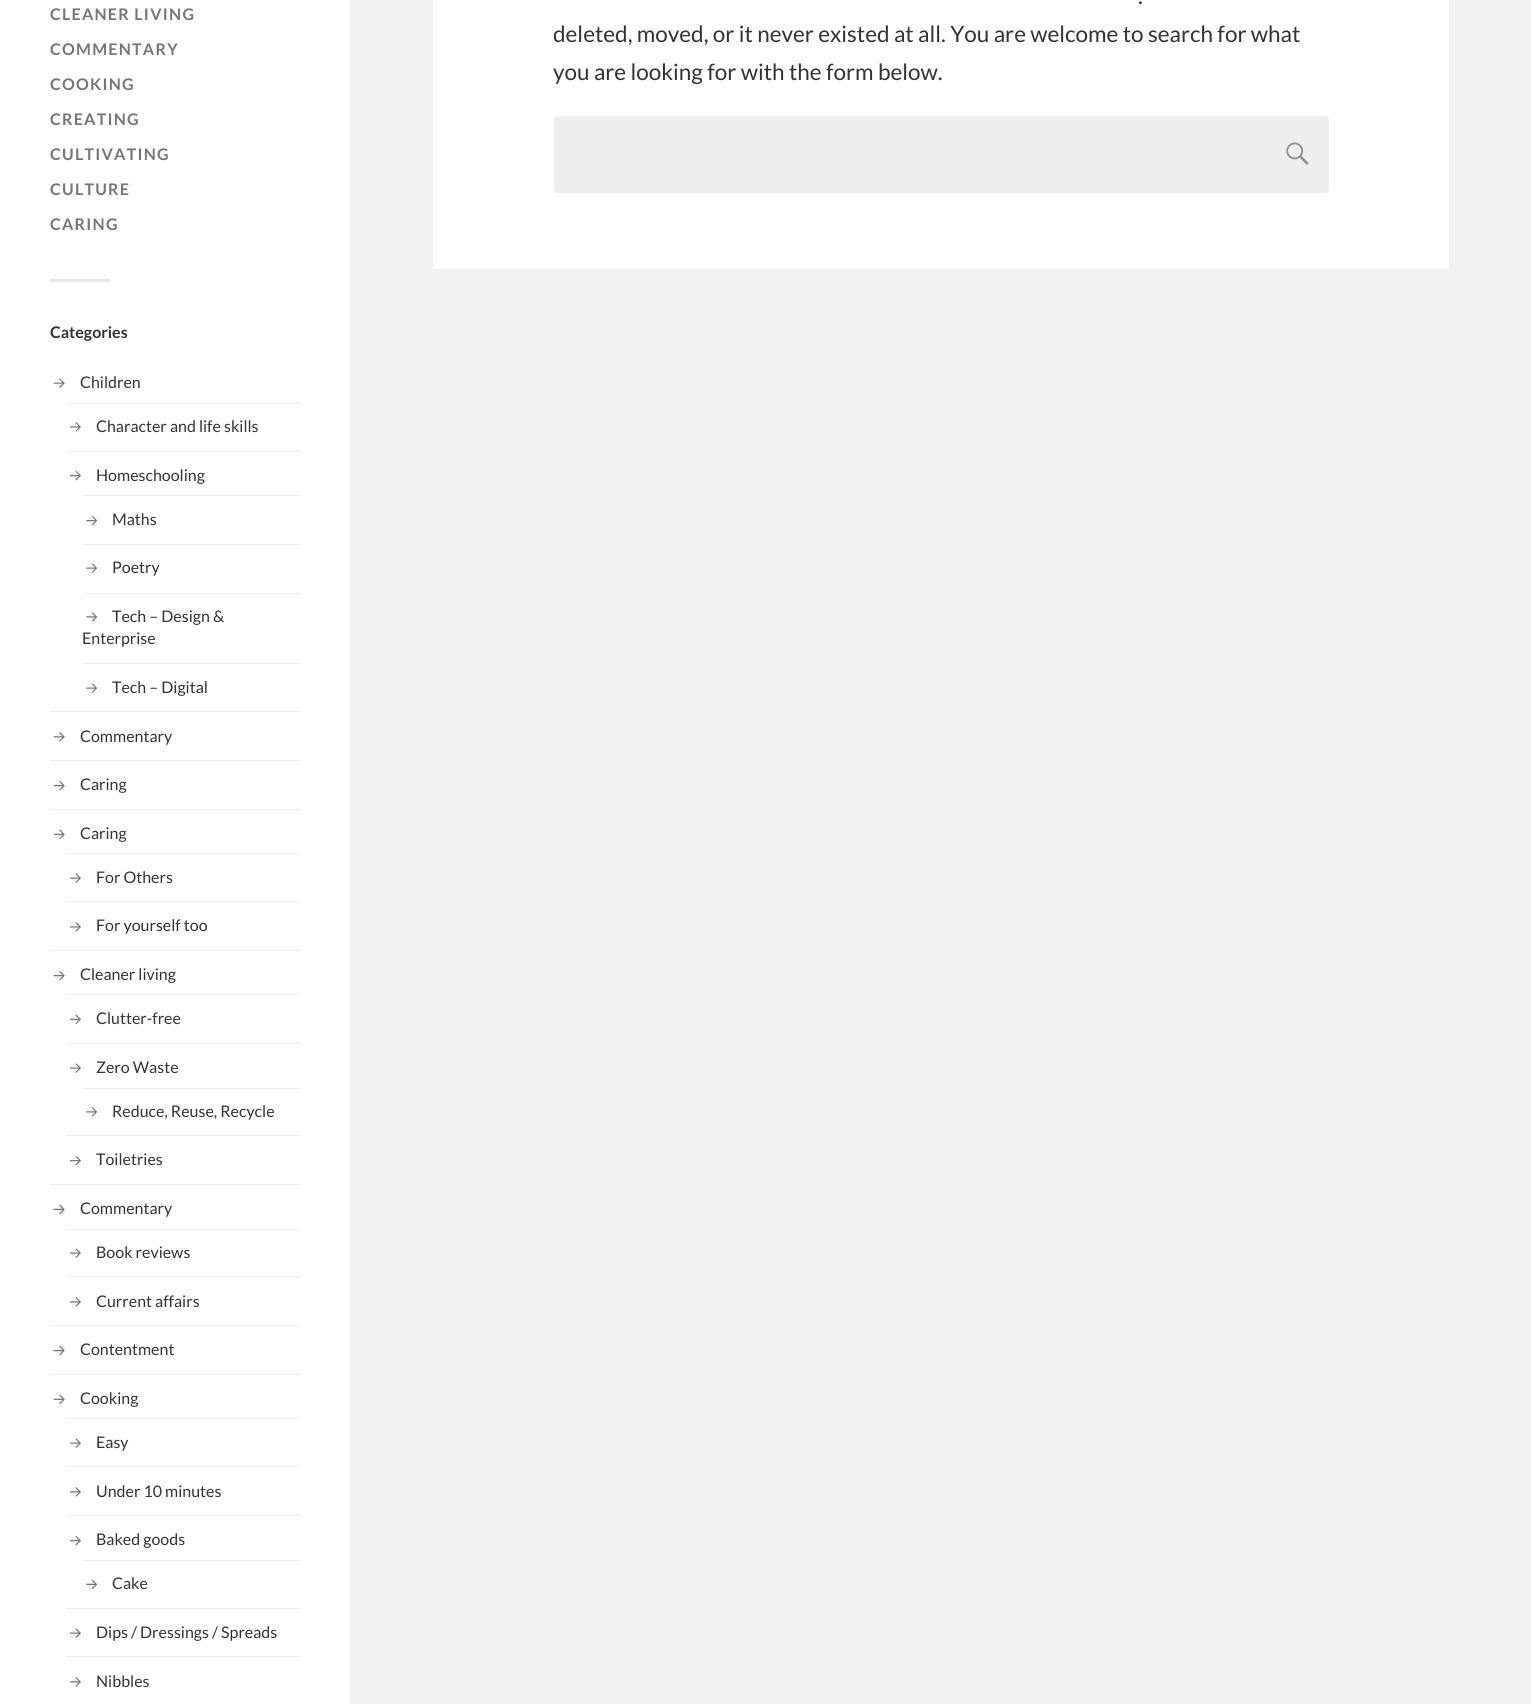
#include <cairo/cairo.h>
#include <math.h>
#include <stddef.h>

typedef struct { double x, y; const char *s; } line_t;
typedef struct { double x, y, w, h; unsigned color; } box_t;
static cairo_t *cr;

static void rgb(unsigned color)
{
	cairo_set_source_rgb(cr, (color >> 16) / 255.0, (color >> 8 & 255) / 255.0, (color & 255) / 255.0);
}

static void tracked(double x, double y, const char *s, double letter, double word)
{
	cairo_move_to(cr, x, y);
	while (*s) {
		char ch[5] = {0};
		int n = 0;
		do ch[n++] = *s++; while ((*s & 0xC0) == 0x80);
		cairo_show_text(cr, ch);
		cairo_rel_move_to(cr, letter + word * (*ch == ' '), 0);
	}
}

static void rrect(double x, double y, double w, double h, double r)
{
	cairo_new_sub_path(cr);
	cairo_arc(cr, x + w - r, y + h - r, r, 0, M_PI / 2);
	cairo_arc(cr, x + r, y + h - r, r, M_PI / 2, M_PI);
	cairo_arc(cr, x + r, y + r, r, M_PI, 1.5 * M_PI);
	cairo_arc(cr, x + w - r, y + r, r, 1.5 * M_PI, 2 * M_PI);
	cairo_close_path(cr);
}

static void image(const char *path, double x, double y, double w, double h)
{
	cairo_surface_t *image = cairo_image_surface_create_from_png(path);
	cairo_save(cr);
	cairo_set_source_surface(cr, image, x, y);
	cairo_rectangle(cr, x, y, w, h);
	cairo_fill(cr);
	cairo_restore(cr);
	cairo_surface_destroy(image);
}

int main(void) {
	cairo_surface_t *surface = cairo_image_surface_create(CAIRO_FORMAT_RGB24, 1531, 1704);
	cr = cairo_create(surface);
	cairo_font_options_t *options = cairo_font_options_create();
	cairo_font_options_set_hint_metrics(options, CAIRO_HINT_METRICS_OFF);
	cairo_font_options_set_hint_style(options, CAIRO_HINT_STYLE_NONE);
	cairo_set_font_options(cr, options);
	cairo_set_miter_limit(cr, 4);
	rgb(0xf2f2f2);
	cairo_paint(cr);
	{
		static const box_t items[] = {
			{0, 0, 350, 1704, 0xffffff},
			{50, 279, 60, 3, 0xe7e7e7},
			{50, 711, 250, 1, 0xeeeeee},
		};
		for (size_t i = 0; i < sizeof items / sizeof *items; i++) {
			rgb(items[i].color);
			cairo_rectangle(cr, items[i].x, items[i].y, items[i].w, items[i].h);
			cairo_fill(cr);
		}
	}
	image("img/1.png", 53, 378, 12, 10);
	cairo_rectangle(cr, 66, 403, 234, 1);
	cairo_fill(cr);
	cairo_rectangle(cr, 66, 451, 234, 1);
	cairo_fill(cr);
	image("img/2.png", 70, 422, 11, 10);
	image("img/3.png", 70, 470, 11, 11);
	cairo_rectangle(cr, 83, 495, 217, 1);
	cairo_fill(cr);
	cairo_rectangle(cr, 83, 544, 217, 1);
	cairo_fill(cr);
	image("img/4.png", 86, 515, 12, 11);
	cairo_rectangle(cr, 83, 593, 217, 1);
	cairo_fill(cr);
	image("img/5.png", 86, 563, 12, 10);
	cairo_rectangle(cr, 83, 663, 217, 1);
	cairo_fill(cr);
	image("img/6.png", 86, 612, 12, 10);
	image("img/5.png", 86, 683, 12, 10);
	cairo_rectangle(cr, 50, 760, 250, 1);
	cairo_fill(cr);
	image("img/7.png", 53, 732, 12, 10);
	cairo_rectangle(cr, 50, 809, 250, 1);
	cairo_fill(cr);
	image("img/8.png", 53, 781, 12, 10);
	cairo_rectangle(cr, 50, 950, 250, 1);
	cairo_fill(cr);
	image("img/9.png", 53, 829, 12, 10);
	cairo_rectangle(cr, 66, 853, 234, 1);
	cairo_fill(cr);
	cairo_rectangle(cr, 66, 901, 234, 1);
	cairo_fill(cr);
	image("img/10.png", 70, 873, 11, 10);
	image("img/2.png", 70, 922, 11, 10);
	cairo_rectangle(cr, 50, 1184, 250, 1);
	cairo_fill(cr);
	image("img/8.png", 53, 971, 12, 10);
	cairo_rectangle(cr, 66, 994, 234, 1);
	cairo_fill(cr);
	cairo_rectangle(cr, 66, 1043, 234, 1);
	cairo_fill(cr);
	image("img/11.png", 70, 1014, 11, 11);
	cairo_rectangle(cr, 66, 1135, 234, 1);
	cairo_fill(cr);
	image("img/10.png", 70, 1063, 11, 10);
	cairo_rectangle(cr, 83, 1088, 217, 1);
	cairo_fill(cr);
	image("img/6.png", 86, 1107, 12, 10);
	image("img/3.png", 70, 1155, 11, 11);
	cairo_rectangle(cr, 50, 1325, 250, 1);
	cairo_fill(cr);
	image("img/9.png", 53, 1204, 12, 10);
	cairo_rectangle(cr, 66, 1229, 234, 1);
	cairo_fill(cr);
	cairo_rectangle(cr, 66, 1276, 234, 1);
	cairo_fill(cr);
	image("img/10.png", 70, 1248, 11, 10);
	image("img/2.png", 70, 1297, 11, 10);
	cairo_rectangle(cr, 50, 1374, 250, 1);
	cairo_fill(cr);
	image("img/8.png", 53, 1346, 12, 10);
	image("img/9.png", 53, 1394, 12, 10);
	cairo_rectangle(cr, 66, 1418, 234, 1);
	cairo_fill(cr);
	cairo_rectangle(cr, 66, 1466, 234, 1);
	cairo_fill(cr);
	image("img/10.png", 70, 1438, 11, 10);
	cairo_rectangle(cr, 66, 1515, 234, 1);
	cairo_fill(cr);
	image("img/2.png", 70, 1487, 11, 10);
	cairo_rectangle(cr, 66, 1608, 234, 1);
	cairo_fill(cr);
	image("img/3.png", 70, 1535, 11, 11);
	cairo_rectangle(cr, 83, 1560, 217, 1);
	cairo_fill(cr);
	image("img/12.png", 86, 1579, 12, 11);
	cairo_rectangle(cr, 66, 1656, 234, 1);
	cairo_fill(cr);
	image("img/10.png", 70, 1628, 11, 10);
	image("img/2.png", 70, 1677, 11, 10);
	rgb(0xffffff);
	cairo_rectangle(cr, 433, 0, 1016, 269);
	cairo_fill(cr);
	rgb(0xeeeeee);
	rrect(554, 116, 775, 77, 4);
	cairo_fill(cr);
	image("img/13.png", 1286, 142, 23, 23);
	cairo_select_font_face(cr, "Lato", CAIRO_FONT_SLANT_NORMAL, CAIRO_FONT_WEIGHT_BOLD);
	cairo_set_font_size(cr, 16);
	rgb(0x767676);
	{
		static const line_t items[] = {
			{50, 20, "CLEANER LIVING"},
			{50, 55, "COMMENTARY"},
			{50, 90, "COOKING"},
			{50, 125, "CREATING"},
			{50, 160, "CULTIVATING"},
			{50, 195, "CULTURE"},
			{50, 230, "CARING"},
		};
		for (size_t i = 0; i < sizeof items / sizeof *items; i++) {
			tracked(items[i].x, items[i].y, items[i].s, 1.25, 0);
		}
	}
	rgb(0x333333);
	cairo_move_to(cr, 50, 338);
	cairo_show_text(cr, "Categories");
	cairo_select_font_face(cr, "Lato", CAIRO_FONT_SLANT_NORMAL, CAIRO_FONT_WEIGHT_NORMAL);
	{
		static const line_t items[] = {
			{80, 388, "Children"},
			{96, 432, "Character and life skills"},
			{96, 481, "Homeschooling"},
			{112, 525, "Maths"},
			{112, 573, "Poetry"},
			{112, 622, "Tech – Design &"},
			{82, 644, "Enterprise"},
			{112, 693, "Tech – Digital"},
			{80, 742, "Commentary"},
			{80, 790, "Caring"},
			{80, 839, "Caring"},
			{96, 883, "For Others"},
			{96, 931, "For yourself too"},
			{80, 980, "Cleaner living"},
			{96, 1024, "Clutter-free"},
			{96, 1073, "Zero Waste"},
			{112, 1117, "Reduce, Reuse, Recycle"},
			{96, 1165, "Toiletries"},
			{80, 1214, "Commentary"},
			{96, 1258, "Book reviews"},
			{96, 1307, "Current affairs"},
			{80, 1355, "Contentment"},
			{80, 1404, "Cooking"},
			{96, 1448, "Easy"},
			{96, 1497, "Under 10 minutes"},
			{96, 1545, "Baked goods"},
			{112, 1589, "Cake"},
			{96, 1638, "Dips / Dressings / Spreads"},
			{96, 1687, "Nibbles"},
		};
		for (size_t i = 0; i < sizeof items / sizeof *items; i++) {
			cairo_move_to(cr, items[i].x, items[i].y);
			cairo_show_text(cr, items[i].s);
		}
	}
	cairo_set_font_size(cr, 22.5);
	{
		static const line_t items[] = {
			{1138, 4, "."},
			{553, 42, "deleted, moved, or it never existed at all. You are welcome to search for what"},
			{553, 80, "you are looking for with the form below."},
		};
		for (size_t i = 0; i < sizeof items / sizeof *items; i++) {
			cairo_move_to(cr, items[i].x, items[i].y);
			cairo_show_text(cr, items[i].s);
		}
	}
	cairo_surface_write_to_png(surface, "page.png");
	cairo_font_options_destroy(options);
	cairo_destroy(cr);
	cairo_surface_destroy(surface);
	return 0;
}
